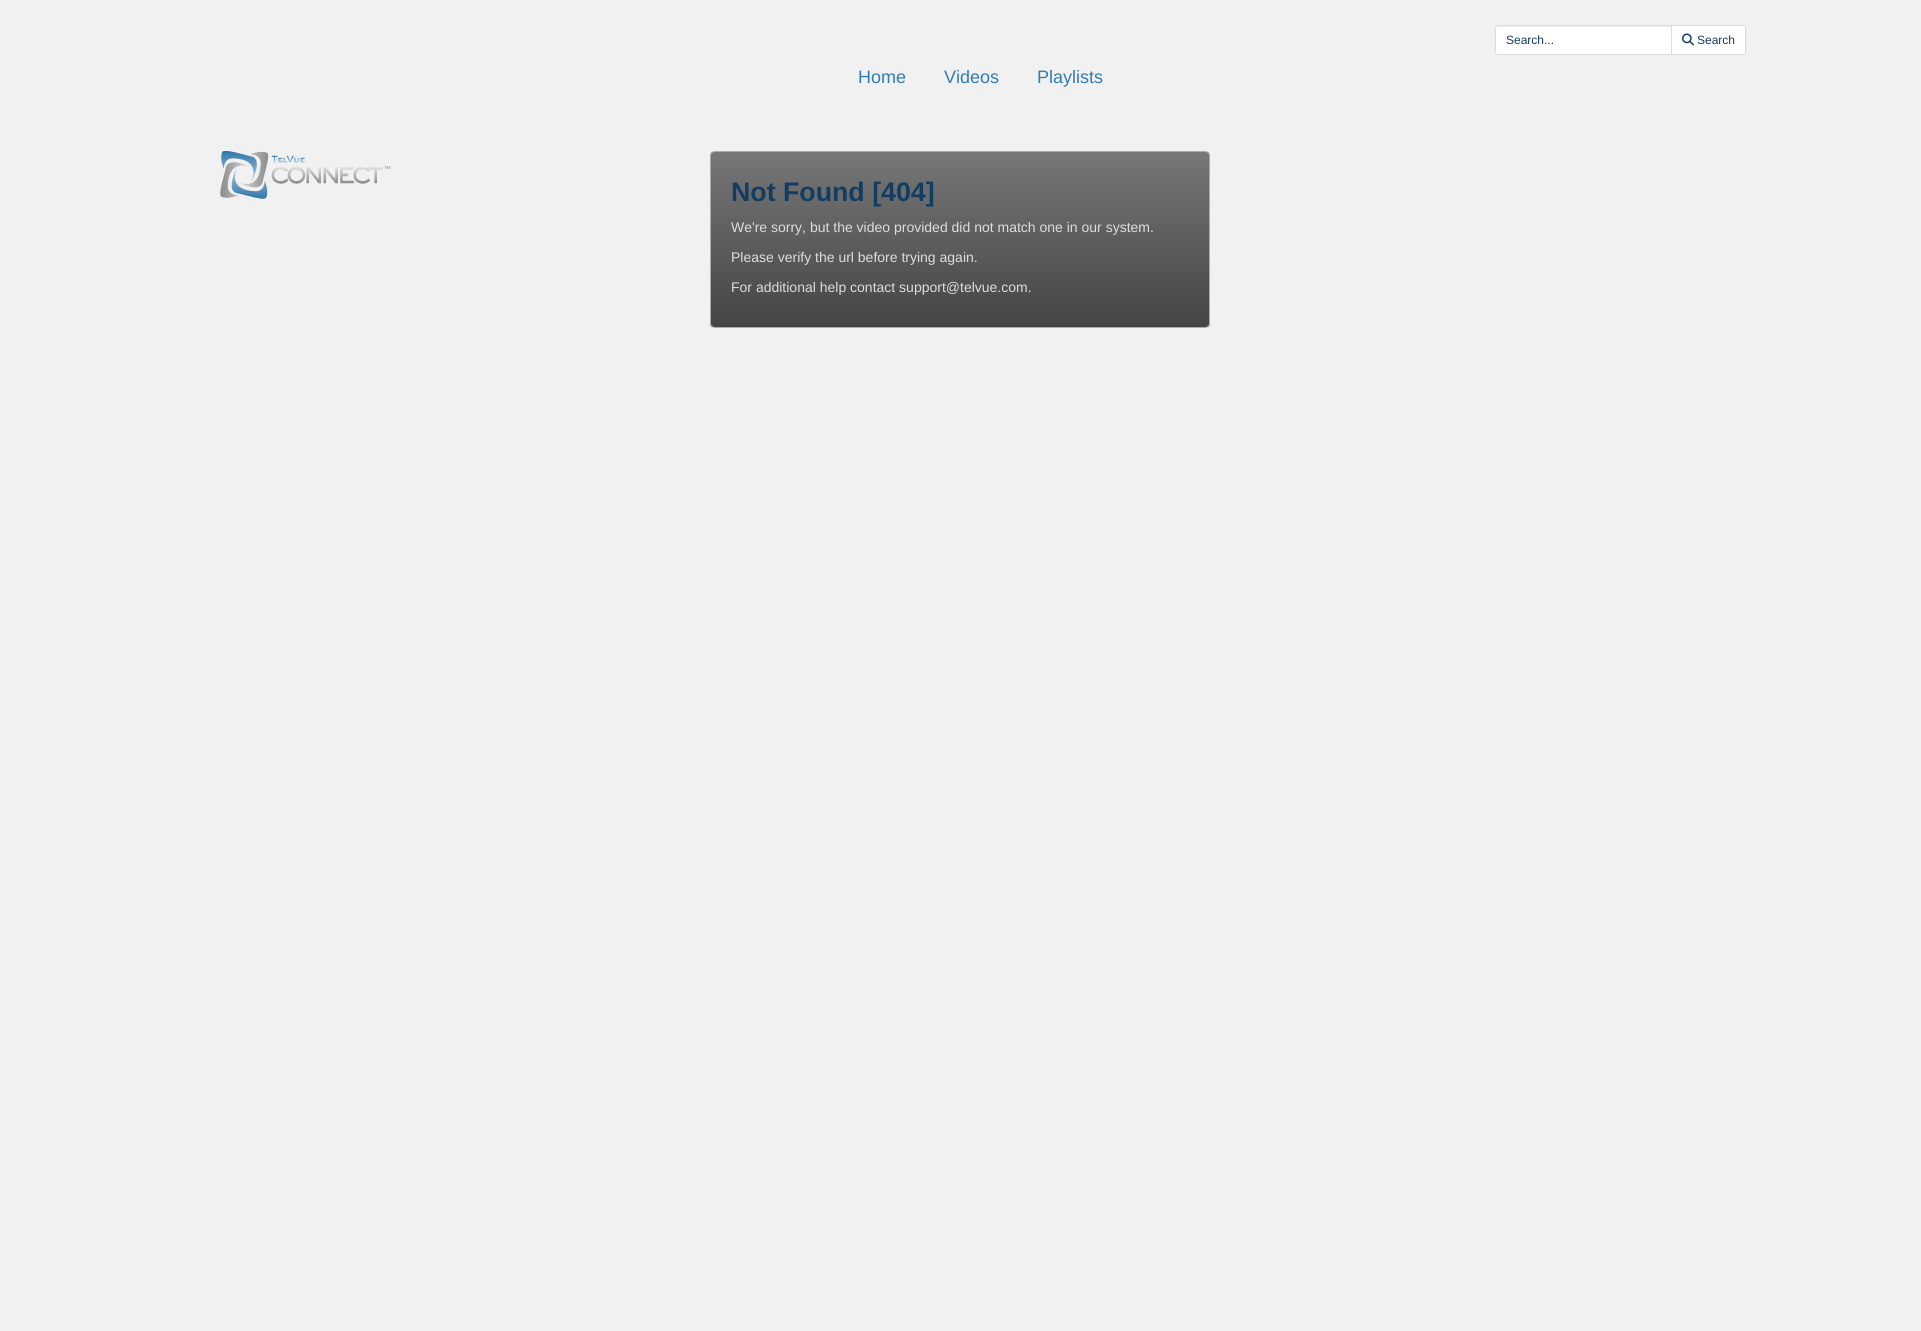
#include <cairo/cairo.h>
#include <math.h>
#include <stddef.h>

typedef struct { double x, y; const char *s; } line_t;
static cairo_t *cr;

static void rgb(unsigned color)
{
	cairo_set_source_rgb(cr, (color >> 16) / 255.0, (color >> 8 & 255) / 255.0, (color & 255) / 255.0);
}

static void rrect(double x, double y, double w, double h, double r)
{
	cairo_new_sub_path(cr);
	cairo_arc(cr, x + w - r, y + h - r, r, 0, M_PI / 2);
	cairo_arc(cr, x + r, y + h - r, r, M_PI / 2, M_PI);
	cairo_arc(cr, x + r, y + r, r, M_PI, 1.5 * M_PI);
	cairo_arc(cr, x + w - r, y + r, r, 1.5 * M_PI, 2 * M_PI);
	cairo_close_path(cr);
}

static void image(const char *path, double x, double y, double w, double h)
{
	cairo_surface_t *image = cairo_image_surface_create_from_png(path);
	cairo_save(cr);
	cairo_set_source_surface(cr, image, x, y);
	cairo_rectangle(cr, x, y, w, h);
	cairo_fill(cr);
	cairo_restore(cr);
	cairo_surface_destroy(image);
}

int main(void) {
	cairo_surface_t *surface = cairo_image_surface_create(CAIRO_FORMAT_RGB24, 1921, 1331);
	cr = cairo_create(surface);
	cairo_font_options_t *options = cairo_font_options_create();
	cairo_font_options_set_hint_metrics(options, CAIRO_HINT_METRICS_OFF);
	cairo_font_options_set_hint_style(options, CAIRO_HINT_STYLE_NONE);
	cairo_set_font_options(cr, options);
	cairo_set_miter_limit(cr, 4);
	cairo_pattern_t *gradient;
	rgb(0xf1f1f1);
	cairo_paint(cr);
	rgb(0xffffff);
	cairo_new_path(cr);
	cairo_move_to(cr, 1498, 25);
	cairo_line_to(cr, 1672, 25);
	cairo_line_to(cr, 1672, 55);
	cairo_line_to(cr, 1498, 55);
	cairo_curve_to(cr, 1496.5, 55, 1495, 53.5, 1495, 52);
	cairo_line_to(cr, 1495, 28);
	cairo_curve_to(cr, 1495, 26.5, 1496.5, 25, 1498, 25);
	cairo_close_path(cr);
	cairo_fill(cr);
	rgb(0xececec);
	cairo_new_path(cr);
	cairo_move_to(cr, 1498, 27);
	cairo_line_to(cr, 1671, 27);
	cairo_line_to(cr, 1671, 26);
	cairo_line_to(cr, 1497, 26);
	cairo_curve_to(cr, 1496, 27, 1496, 28, 1496, 29);
	cairo_curve_to(cr, 1496, 28, 1497, 27, 1498, 27);
	cairo_close_path(cr);
	cairo_fill(cr);
	cairo_new_path(cr);
	cairo_move_to(cr, 1498, 25.5);
	cairo_line_to(cr, 1671.5, 25.5);
	cairo_line_to(cr, 1671.5, 54.5);
	cairo_line_to(cr, 1498, 54.5);
	cairo_curve_to(cr, 1496.5, 54.5, 1495.5, 53.5, 1495.5, 52);
	cairo_line_to(cr, 1495.5, 28);
	cairo_curve_to(cr, 1495.5, 26.5, 1496.5, 25.5, 1498, 25.5);
	cairo_close_path(cr);
	rgb(0xdddddd);
	cairo_set_line_width(cr, 1);
	cairo_stroke(cr);
	rgb(0xffffff);
	cairo_new_path(cr);
	cairo_move_to(cr, 1671.5, 25.5);
	cairo_line_to(cr, 1743, 25.5);
	cairo_curve_to(cr, 1744.5, 25.5, 1745.5, 26.5, 1745.5, 28);
	cairo_line_to(cr, 1745.5, 52);
	cairo_curve_to(cr, 1745.5, 53.5, 1744.5, 54.5, 1743, 54.5);
	cairo_line_to(cr, 1671.5, 54.5);
	cairo_close_path(cr);
	cairo_fill_preserve(cr);
	rgb(0xdddddd);
	cairo_stroke(cr);
	image("img/1.png", 1682, 33, 12, 13);
	image("img/2.png", 220, 151, 171, 48);
	cairo_save(cr);
	rrect(710, 151, 500, 177, 5);
	cairo_clip(cr);
	gradient = cairo_pattern_create_linear(960, 152, 960, 327);
	cairo_pattern_add_color_stop_rgba(gradient, 0, 0.467, 0.467, 0.467, 1);
	cairo_pattern_add_color_stop_rgba(gradient, 1, 0.267, 0.267, 0.267, 1);
	cairo_set_source(cr, gradient);
	cairo_pattern_destroy(gradient);
	cairo_rectangle(cr, 710, 152, 500, 175);
	cairo_fill(cr);
	cairo_restore(cr);
	rrect(710.5, 151.5, 499, 176, 4.5);
	rgb(0xaaaaaa);
	cairo_stroke(cr);
	cairo_select_font_face(cr, "Liberation Sans", CAIRO_FONT_SLANT_NORMAL, CAIRO_FONT_WEIGHT_NORMAL);
	cairo_set_font_size(cr, 12);
	rgb(0x123d62);
	cairo_move_to(cr, 1506, 44);
	cairo_show_text(cr, "Search...");
	cairo_move_to(cr, 1697, 44);
	cairo_show_text(cr, "Search");
	cairo_set_font_size(cr, 18);
	rgb(0x337ab7);
	{
		static const line_t items[] = {
			{858, 83, "Home"},
			{944, 83, "Videos"},
			{1037, 83, "Playlists"},
		};
		for (size_t i = 0; i < sizeof items / sizeof *items; i++) {
			cairo_move_to(cr, items[i].x, items[i].y);
			cairo_show_text(cr, items[i].s);
		}
	}
	cairo_select_font_face(cr, "Liberation Sans", CAIRO_FONT_SLANT_NORMAL, CAIRO_FONT_WEIGHT_BOLD);
	cairo_set_font_size(cr, 26.75);
	rgb(0x123d62);
	cairo_move_to(cr, 731, 201);
	cairo_show_text(cr, "Not Found [404]");
	cairo_select_font_face(cr, "Liberation Sans", CAIRO_FONT_SLANT_NORMAL, CAIRO_FONT_WEIGHT_NORMAL);
	cairo_set_font_size(cr, 14);
	rgb(0xdddddd);
	{
		static const line_t items[] = {
			{731, 232, "We're sorry, but the video provided did not match one in our system."},
			{731, 262, "Please verify the url before trying again."},
			{731, 292, "For additional help contact support@telvue.com."},
		};
		for (size_t i = 0; i < sizeof items / sizeof *items; i++) {
			cairo_move_to(cr, items[i].x, items[i].y);
			cairo_show_text(cr, items[i].s);
		}
	}
	cairo_surface_write_to_png(surface, "page.png");
	cairo_font_options_destroy(options);
	cairo_destroy(cr);
	cairo_surface_destroy(surface);
	return 0;
}
